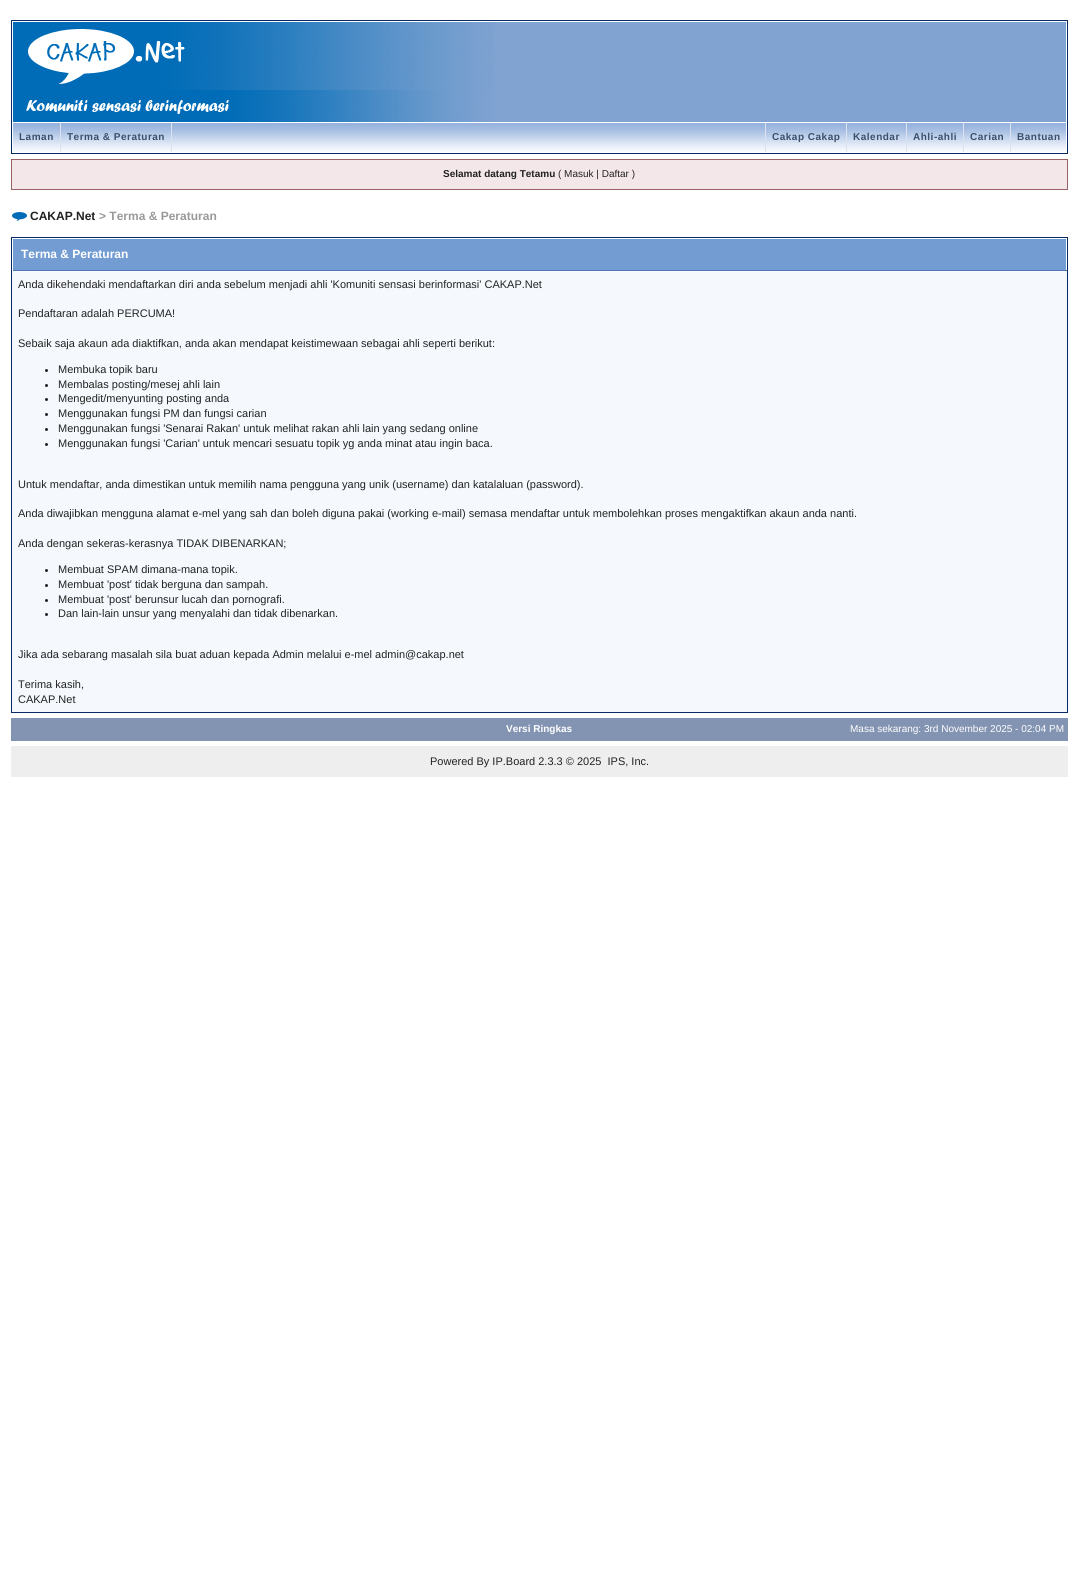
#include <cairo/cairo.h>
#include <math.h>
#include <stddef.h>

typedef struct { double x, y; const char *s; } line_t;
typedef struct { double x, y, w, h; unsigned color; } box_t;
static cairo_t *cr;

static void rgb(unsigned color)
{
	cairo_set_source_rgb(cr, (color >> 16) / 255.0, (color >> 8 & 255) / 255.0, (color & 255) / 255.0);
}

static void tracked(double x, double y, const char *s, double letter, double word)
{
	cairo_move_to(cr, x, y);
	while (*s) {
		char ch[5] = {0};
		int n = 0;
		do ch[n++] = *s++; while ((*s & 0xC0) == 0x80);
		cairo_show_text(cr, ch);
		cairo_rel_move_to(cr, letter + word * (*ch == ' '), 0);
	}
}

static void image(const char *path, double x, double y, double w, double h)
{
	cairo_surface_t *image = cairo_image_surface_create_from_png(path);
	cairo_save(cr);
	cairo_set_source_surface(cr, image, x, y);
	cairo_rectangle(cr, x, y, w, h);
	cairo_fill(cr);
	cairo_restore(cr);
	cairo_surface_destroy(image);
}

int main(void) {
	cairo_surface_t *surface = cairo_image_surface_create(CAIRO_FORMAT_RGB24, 1079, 1594);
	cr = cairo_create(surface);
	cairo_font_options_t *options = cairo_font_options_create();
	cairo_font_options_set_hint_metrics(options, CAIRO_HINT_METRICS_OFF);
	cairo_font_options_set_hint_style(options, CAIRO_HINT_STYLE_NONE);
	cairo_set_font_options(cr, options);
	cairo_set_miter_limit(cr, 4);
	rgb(0xffffff);
	cairo_paint(cr);
	cairo_rectangle(cr, 11.5, 20.5, 1056, 133);
	rgb(0x072a66);
	cairo_set_line_width(cr, 1);
	cairo_stroke(cr);
	rgb(0x80a3d1);
	cairo_rectangle(cr, 494, 22, 572, 100);
	cairo_fill(cr);
	image("img/1.png", 13, 22, 481, 100);
	image("img/2.png", 13, 123, 1053, 29);
	{
		static const box_t items[] = {
			{60, 123, 1, 29, 0xdce3ee},
			{171, 123, 1, 29, 0xdce3ee},
			{765, 123, 1, 29, 0xdce3ee},
			{846, 123, 1, 29, 0xdce3ee},
			{906, 123, 1, 29, 0xdce3ee},
			{963, 123, 1, 29, 0xdce3ee},
			{1010, 123, 1, 29, 0xdce3ee},
		};
		for (size_t i = 0; i < sizeof items / sizeof *items; i++) {
			rgb(items[i].color);
			cairo_rectangle(cr, items[i].x, items[i].y, items[i].w, items[i].h);
			cairo_fill(cr);
		}
	}
	rgb(0xf4e7ea);
	cairo_rectangle(cr, 11.5, 159.5, 1056, 30);
	cairo_fill_preserve(cr);
	rgb(0x986265);
	cairo_stroke(cr);
	image("img/3.png", 12, 212, 15, 9);
	cairo_rectangle(cr, 11.5, 237.5, 1056, 475);
	rgb(0x072a66);
	cairo_stroke(cr);
	{
		static const box_t items[] = {
			{13, 239, 1053, 31, 0x739cd2},
			{12, 270, 1055, 1, 0x5176b5},
			{12, 270, 1, 1, 0xffffff},
			{12, 271, 1055, 441, 0xf5f9fd},
		};
		for (size_t i = 0; i < sizeof items / sizeof *items; i++) {
			rgb(items[i].color);
			cairo_rectangle(cr, items[i].x, items[i].y, items[i].w, items[i].h);
			cairo_fill(cr);
		}
	}
	rgb(0x222222);
	cairo_arc(cr, 46.5, 370.5, 1.5, 0, 2 * M_PI);
	cairo_fill(cr);
	cairo_arc(cr, 46.5, 385.5, 1.5, 0, 2 * M_PI);
	cairo_fill(cr);
	cairo_arc(cr, 46.5, 399.5, 1.5, 0, 2 * M_PI);
	cairo_fill(cr);
	cairo_arc(cr, 46.5, 414.5, 1.5, 0, 2 * M_PI);
	cairo_fill(cr);
	cairo_arc(cr, 46.5, 429.5, 1.5, 0, 2 * M_PI);
	cairo_fill(cr);
	cairo_arc(cr, 46.5, 444.5, 1.5, 0, 2 * M_PI);
	cairo_fill(cr);
	cairo_arc(cr, 46.5, 570.5, 1.5, 0, 2 * M_PI);
	cairo_fill(cr);
	cairo_arc(cr, 46.5, 585.5, 1.5, 0, 2 * M_PI);
	cairo_fill(cr);
	cairo_arc(cr, 46.5, 600.5, 1.5, 0, 2 * M_PI);
	cairo_fill(cr);
	cairo_arc(cr, 46.5, 614.5, 1.5, 0, 2 * M_PI);
	cairo_fill(cr);
	rgb(0x8394b2);
	cairo_rectangle(cr, 11, 718, 1057, 23);
	cairo_fill(cr);
	rgb(0xeeeeee);
	cairo_rectangle(cr, 11, 746, 1057, 31);
	cairo_fill(cr);
	cairo_select_font_face(cr, "Liberation Sans", CAIRO_FONT_SLANT_NORMAL, CAIRO_FONT_WEIGHT_BOLD);
	cairo_set_font_size(cr, 10);
	rgb(0x3a4f6c);
	{
		static const line_t items[] = {
			{19, 140, "Laman"},
			{67, 140, "Terma & Peraturan"},
			{772, 140, "Cakap Cakap"},
			{853, 140, "Kalendar"},
			{913, 140, "Ahli-ahli"},
			{970, 140, "Carian"},
			{1017, 140, "Bantuan"},
		};
		for (size_t i = 0; i < sizeof items / sizeof *items; i++) {
			tracked(items[i].x, items[i].y, items[i].s, 0.5, 0);
		}
	}
	rgb(0x222222);
	cairo_move_to(cr, 443, 177);
	cairo_show_text(cr, "Selamat datang Tetamu");
	cairo_select_font_face(cr, "Liberation Sans", CAIRO_FONT_SLANT_NORMAL, CAIRO_FONT_WEIGHT_NORMAL);
	cairo_move_to(cr, 558, 177);
	cairo_show_text(cr, "( Masuk | Daftar )");
	cairo_select_font_face(cr, "Liberation Sans", CAIRO_FONT_SLANT_NORMAL, CAIRO_FONT_WEIGHT_BOLD);
	cairo_set_font_size(cr, 12);
	cairo_move_to(cr, 30, 220);
	cairo_show_text(cr, "CAKAP.Net");
	rgb(0x999999);
	cairo_move_to(cr, 99, 220);
	cairo_show_text(cr, "> Terma & Peraturan");
	rgb(0xffffff);
	cairo_move_to(cr, 21, 258);
	cairo_show_text(cr, "Terma & Peraturan");
	cairo_select_font_face(cr, "Liberation Sans", CAIRO_FONT_SLANT_NORMAL, CAIRO_FONT_WEIGHT_NORMAL);
	cairo_set_font_size(cr, 11);
	rgb(0x222222);
	{
		static const line_t items[] = {
			{18, 288, "Anda dikehendaki mendaftarkan diri anda sebelum menjadi ahli 'Komuniti sensasi berinformasi' CAKAP.Net"},
			{18, 317, "Pendaftaran adalah PERCUMA!"},
			{18, 347, "Sebaik saja akaun ada diaktifkan, anda akan mendapat keistimewaan sebagai ahli seperti berikut:"},
			{58, 373, "Membuka topik baru"},
			{58, 388, "Membalas posting/mesej ahli lain"},
			{58, 402, "Mengedit/menyunting posting anda"},
			{58, 417, "Menggunakan fungsi PM dan fungsi carian"},
			{58, 432, "Menggunakan fungsi 'Senarai Rakan' untuk melihat rakan ahli lain yang sedang online"},
			{58, 447, "Menggunakan fungsi 'Carian' untuk mencari sesuatu topik yg anda minat atau ingin baca."},
			{18, 488, "Untuk mendaftar, anda dimestikan untuk memilih nama pengguna yang unik (username) dan katalaluan (password)."},
			{18, 517, "Anda diwajibkan mengguna alamat e-mel yang sah dan boleh diguna pakai (working e-mail) semasa mendaftar untuk membolehkan proses mengaktifkan akaun anda nanti."},
			{18, 547, "Anda dengan sekeras-kerasnya TIDAK DIBENARKAN;"},
			{58, 573, "Membuat SPAM dimana-mana topik."},
			{58, 588, "Membuat 'post' tidak berguna dan sampah."},
			{58, 603, "Membuat 'post' berunsur lucah dan pornografi."},
			{58, 617, "Dan lain-lain unsur yang menyalahi dan tidak dibenarkan."},
			{18, 658, "Jika ada sebarang masalah sila buat aduan kepada Admin melalui e-mel admin@cakap.net"},
			{18, 688, "Terima kasih,"},
			{18, 703, "CAKAP.Net"},
		};
		for (size_t i = 0; i < sizeof items / sizeof *items; i++) {
			cairo_move_to(cr, items[i].x, items[i].y);
			cairo_show_text(cr, items[i].s);
		}
	}
	cairo_select_font_face(cr, "Liberation Sans", CAIRO_FONT_SLANT_NORMAL, CAIRO_FONT_WEIGHT_BOLD);
	cairo_set_font_size(cr, 10);
	rgb(0xffffff);
	cairo_move_to(cr, 506, 732);
	cairo_show_text(cr, "Versi Ringkas");
	cairo_select_font_face(cr, "Liberation Sans", CAIRO_FONT_SLANT_NORMAL, CAIRO_FONT_WEIGHT_NORMAL);
	cairo_move_to(cr, 850, 732);
	cairo_show_text(cr, "Masa sekarang: 3rd November 2025 - 02:04 PM");
	cairo_set_font_size(cr, 11);
	rgb(0x222222);
	cairo_move_to(cr, 430, 765);
	cairo_show_text(cr, "Powered By IP.Board 2.3.3 © 2025  IPS, Inc.");
	cairo_surface_write_to_png(surface, "page.png");
	cairo_font_options_destroy(options);
	cairo_destroy(cr);
	cairo_surface_destroy(surface);
	return 0;
}
